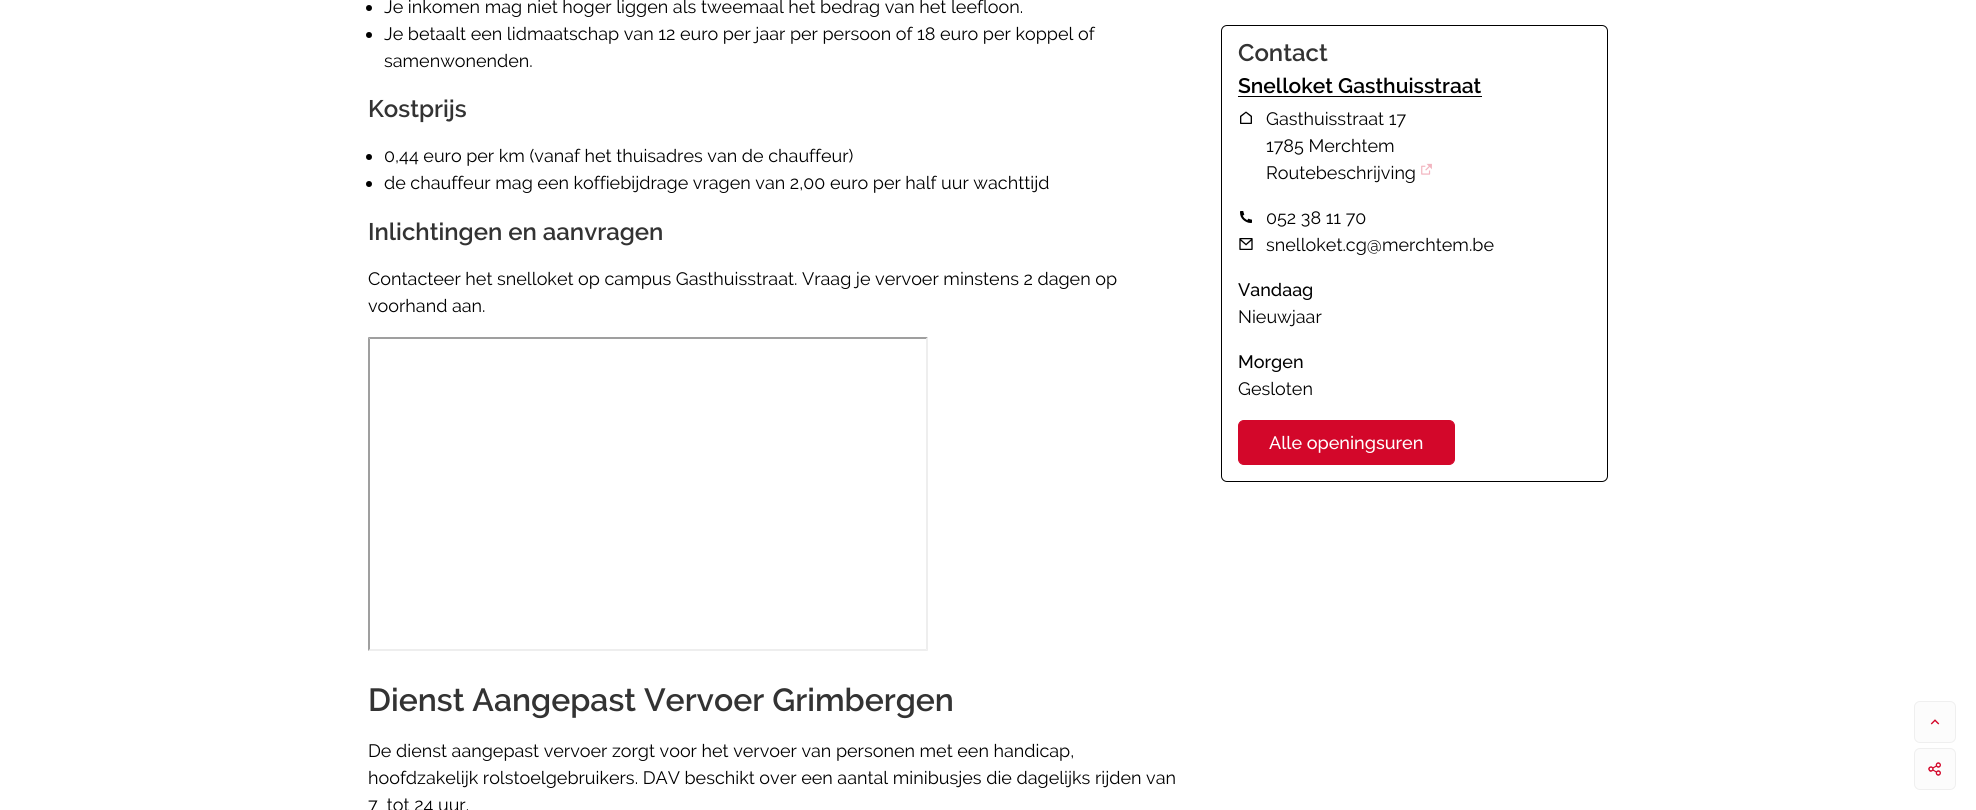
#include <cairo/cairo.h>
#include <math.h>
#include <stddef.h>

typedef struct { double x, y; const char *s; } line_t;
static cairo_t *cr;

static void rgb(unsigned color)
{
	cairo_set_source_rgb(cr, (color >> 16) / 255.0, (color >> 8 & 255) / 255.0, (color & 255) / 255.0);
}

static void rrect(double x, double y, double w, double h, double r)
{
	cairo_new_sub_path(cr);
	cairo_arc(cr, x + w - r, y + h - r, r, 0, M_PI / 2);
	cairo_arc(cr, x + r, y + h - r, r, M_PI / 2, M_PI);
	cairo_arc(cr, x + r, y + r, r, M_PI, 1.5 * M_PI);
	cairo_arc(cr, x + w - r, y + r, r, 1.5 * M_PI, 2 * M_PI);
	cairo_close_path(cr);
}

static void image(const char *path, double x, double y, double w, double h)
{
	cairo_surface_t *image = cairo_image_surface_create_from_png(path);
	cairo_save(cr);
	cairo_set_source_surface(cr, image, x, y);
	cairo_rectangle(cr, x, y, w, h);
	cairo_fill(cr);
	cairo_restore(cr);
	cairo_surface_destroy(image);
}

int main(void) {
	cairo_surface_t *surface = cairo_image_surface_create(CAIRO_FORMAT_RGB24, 1976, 810);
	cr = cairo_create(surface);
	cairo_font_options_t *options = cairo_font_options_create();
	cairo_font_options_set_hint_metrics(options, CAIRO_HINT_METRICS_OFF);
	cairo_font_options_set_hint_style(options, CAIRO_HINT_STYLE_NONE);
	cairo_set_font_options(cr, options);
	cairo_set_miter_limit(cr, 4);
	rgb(0xffffff);
	cairo_paint(cr);
	rgb(0x000000);
	cairo_arc(cr, 369, 8, 3, 0, 2 * M_PI);
	cairo_fill(cr);
	cairo_arc(cr, 369, 35, 3, 0, 2 * M_PI);
	cairo_fill(cr);
	cairo_arc(cr, 369, 157, 3, 0, 2 * M_PI);
	cairo_fill(cr);
	cairo_arc(cr, 369, 184, 3, 0, 2 * M_PI);
	cairo_fill(cr);
	rgb(0x9f9f9f);
	cairo_new_path(cr);
	cairo_move_to(cr, 368, 337);
	cairo_line_to(cr, 928, 337);
	cairo_line_to(cr, 926, 339);
	cairo_line_to(cr, 370, 339);
	cairo_close_path(cr);
	cairo_fill(cr);
	rgb(0xeeeeee);
	cairo_new_path(cr);
	cairo_move_to(cr, 928, 337);
	cairo_line_to(cr, 928, 651);
	cairo_line_to(cr, 926, 649);
	cairo_line_to(cr, 926, 339);
	cairo_close_path(cr);
	cairo_fill(cr);
	cairo_new_path(cr);
	cairo_move_to(cr, 928, 651);
	cairo_line_to(cr, 368, 651);
	cairo_line_to(cr, 370, 649);
	cairo_line_to(cr, 926, 649);
	cairo_close_path(cr);
	cairo_fill(cr);
	rgb(0x9f9f9f);
	cairo_new_path(cr);
	cairo_move_to(cr, 368, 651);
	cairo_line_to(cr, 368, 337);
	cairo_line_to(cr, 370, 339);
	cairo_line_to(cr, 370, 649);
	cairo_close_path(cr);
	cairo_fill(cr);
	rrect(1221.5, 25.5, 386, 456, 5.5);
	rgb(0x000000);
	cairo_set_line_width(cr, 1);
	cairo_stroke(cr);
	cairo_rectangle(cr, 1238, 96, 244, 1);
	cairo_fill(cr);
	image("img/1.png", 1240, 111, 12, 13);
	image("img/2.png", 1421, 163, 11, 12);
	image("img/3.png", 1240, 211, 12, 12);
	image("img/4.png", 1239, 238, 14, 12);
	rgb(0xd3072a);
	rrect(1238.5, 420.5, 216, 44, 5.5);
	cairo_fill_preserve(cr);
	cairo_stroke(cr);
	rgb(0xfcfcfc);
	rrect(1914.5, 701.5, 41, 41, 5.5);
	cairo_fill_preserve(cr);
	rgb(0xefefef);
	cairo_stroke(cr);
	image("img/5.png", 1930, 719, 10, 6);
	rgb(0xfcfcfc);
	rrect(1914.5, 748.5, 41, 41, 5.5);
	cairo_fill_preserve(cr);
	rgb(0xefefef);
	cairo_stroke(cr);
	image("img/6.png", 1928, 762, 13, 14);
	cairo_select_font_face(cr, "Raleway", CAIRO_FONT_SLANT_NORMAL, CAIRO_FONT_WEIGHT_NORMAL);
	cairo_set_font_size(cr, 18);
	rgb(0x000000);
	{
		static const line_t items[] = {
			{384, 13, "Je inkomen mag niet hoger liggen als tweemaal het bedrag van het leefloon."},
			{384, 40, "Je betaalt een lidmaatschap van 12 euro per jaar per persoon of 18 euro per koppel of"},
			{384, 67, "samenwonenden."},
		};
		for (size_t i = 0; i < sizeof items / sizeof *items; i++) {
			cairo_move_to(cr, items[i].x, items[i].y);
			cairo_show_text(cr, items[i].s);
		}
	}
	cairo_select_font_face(cr, "Raleway SemiBold", CAIRO_FONT_SLANT_NORMAL, CAIRO_FONT_WEIGHT_NORMAL);
	cairo_set_font_size(cr, 24);
	rgb(0x333333);
	cairo_move_to(cr, 368, 117);
	cairo_show_text(cr, "Kostprijs");
	cairo_select_font_face(cr, "Raleway", CAIRO_FONT_SLANT_NORMAL, CAIRO_FONT_WEIGHT_NORMAL);
	cairo_set_font_size(cr, 18);
	rgb(0x000000);
	cairo_move_to(cr, 384, 162);
	cairo_show_text(cr, "0,44 euro per km (vanaf het thuisadres van de chauffeur)");
	cairo_move_to(cr, 384, 189);
	cairo_show_text(cr, "de chauffeur mag een koffiebijdrage vragen van 2,00 euro per half uur wachttijd");
	cairo_select_font_face(cr, "Raleway SemiBold", CAIRO_FONT_SLANT_NORMAL, CAIRO_FONT_WEIGHT_NORMAL);
	cairo_set_font_size(cr, 24);
	rgb(0x333333);
	cairo_move_to(cr, 368, 240);
	cairo_show_text(cr, "Inlichtingen en aanvragen");
	cairo_select_font_face(cr, "Raleway", CAIRO_FONT_SLANT_NORMAL, CAIRO_FONT_WEIGHT_NORMAL);
	cairo_set_font_size(cr, 18);
	rgb(0x000000);
	cairo_move_to(cr, 368, 285);
	cairo_show_text(cr, "Contacteer het snelloket op campus Gasthuisstraat. Vraag je vervoer minstens 2 dagen op");
	cairo_move_to(cr, 368, 312);
	cairo_show_text(cr, "voorhand aan.");
	cairo_select_font_face(cr, "Raleway SemiBold", CAIRO_FONT_SLANT_NORMAL, CAIRO_FONT_WEIGHT_NORMAL);
	cairo_set_font_size(cr, 32);
	rgb(0x333333);
	cairo_move_to(cr, 368, 711);
	cairo_show_text(cr, "Dienst Aangepast Vervoer Grimbergen");
	cairo_select_font_face(cr, "Raleway", CAIRO_FONT_SLANT_NORMAL, CAIRO_FONT_WEIGHT_NORMAL);
	cairo_set_font_size(cr, 18);
	rgb(0x000000);
	{
		static const line_t items[] = {
			{368, 757, "De dienst aangepast vervoer zorgt voor het vervoer van personen met een handicap,"},
			{368, 784, "hoofdzakelijk rolstoelgebruikers. DAV beschikt over een aantal minibusjes die dagelijks rijden van"},
			{368, 811, "7  tot 24 uur."},
		};
		for (size_t i = 0; i < sizeof items / sizeof *items; i++) {
			cairo_move_to(cr, items[i].x, items[i].y);
			cairo_show_text(cr, items[i].s);
		}
	}
	cairo_select_font_face(cr, "Raleway SemiBold", CAIRO_FONT_SLANT_NORMAL, CAIRO_FONT_WEIGHT_NORMAL);
	cairo_set_font_size(cr, 24);
	rgb(0x333333);
	cairo_move_to(cr, 1238, 61);
	cairo_show_text(cr, "Contact");
	cairo_set_font_size(cr, 21);
	rgb(0x000000);
	cairo_move_to(cr, 1238, 93);
	cairo_show_text(cr, "Snelloket Gasthuisstraat");
	cairo_select_font_face(cr, "Raleway", CAIRO_FONT_SLANT_NORMAL, CAIRO_FONT_WEIGHT_NORMAL);
	cairo_set_font_size(cr, 18);
	{
		static const line_t items[] = {
			{1266, 125, "Gasthuisstraat 17"},
			{1266, 152, "1785 Merchtem"},
			{1266, 179, "Routebeschrijving"},
			{1266, 224, "052 38 11 70"},
			{1266, 251, "snelloket.cg@merchtem.be"},
		};
		for (size_t i = 0; i < sizeof items / sizeof *items; i++) {
			cairo_move_to(cr, items[i].x, items[i].y);
			cairo_show_text(cr, items[i].s);
		}
	}
	cairo_select_font_face(cr, "Raleway Thin", CAIRO_FONT_SLANT_NORMAL, CAIRO_FONT_WEIGHT_NORMAL);
	cairo_move_to(cr, 1238, 296);
	cairo_show_text(cr, "Vandaag");
	cairo_select_font_face(cr, "Raleway", CAIRO_FONT_SLANT_NORMAL, CAIRO_FONT_WEIGHT_NORMAL);
	cairo_move_to(cr, 1238, 323);
	cairo_show_text(cr, "Nieuwjaar");
	cairo_select_font_face(cr, "Raleway Thin", CAIRO_FONT_SLANT_NORMAL, CAIRO_FONT_WEIGHT_NORMAL);
	cairo_move_to(cr, 1238, 368);
	cairo_show_text(cr, "Morgen");
	cairo_select_font_face(cr, "Raleway", CAIRO_FONT_SLANT_NORMAL, CAIRO_FONT_WEIGHT_NORMAL);
	cairo_move_to(cr, 1238, 395);
	cairo_show_text(cr, "Gesloten");
	cairo_select_font_face(cr, "Raleway Thin", CAIRO_FONT_SLANT_NORMAL, CAIRO_FONT_WEIGHT_NORMAL);
	rgb(0xffffff);
	cairo_move_to(cr, 1269, 449);
	cairo_show_text(cr, "Alle openingsuren");
	cairo_surface_write_to_png(surface, "page.png");
	cairo_font_options_destroy(options);
	cairo_destroy(cr);
	cairo_surface_destroy(surface);
	return 0;
}
